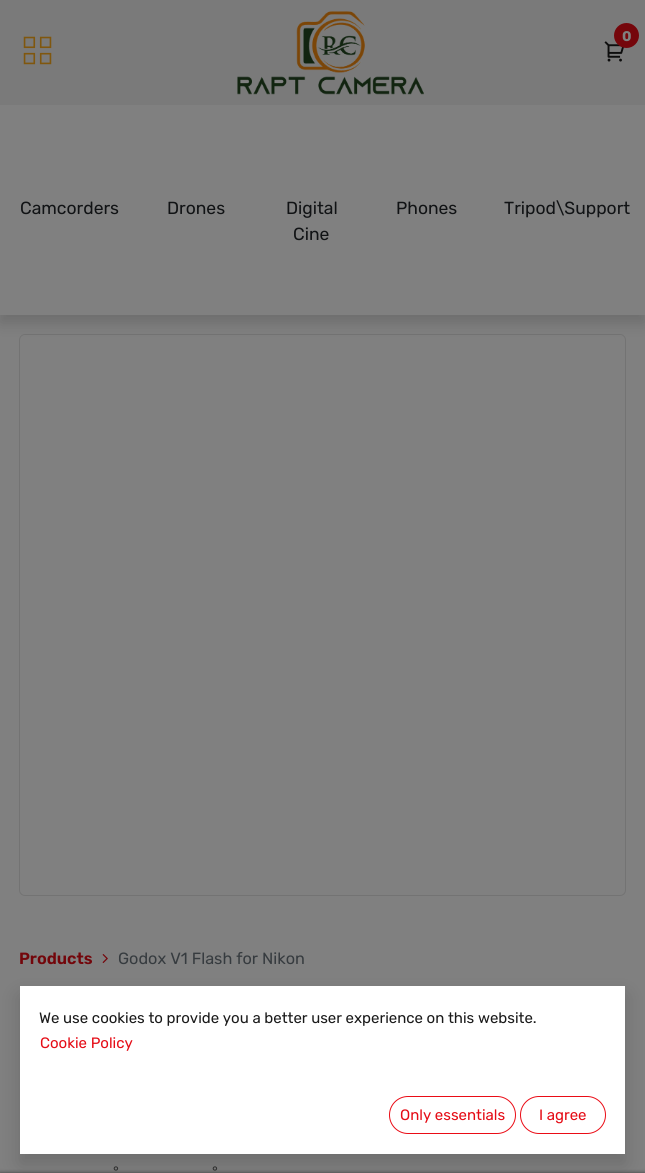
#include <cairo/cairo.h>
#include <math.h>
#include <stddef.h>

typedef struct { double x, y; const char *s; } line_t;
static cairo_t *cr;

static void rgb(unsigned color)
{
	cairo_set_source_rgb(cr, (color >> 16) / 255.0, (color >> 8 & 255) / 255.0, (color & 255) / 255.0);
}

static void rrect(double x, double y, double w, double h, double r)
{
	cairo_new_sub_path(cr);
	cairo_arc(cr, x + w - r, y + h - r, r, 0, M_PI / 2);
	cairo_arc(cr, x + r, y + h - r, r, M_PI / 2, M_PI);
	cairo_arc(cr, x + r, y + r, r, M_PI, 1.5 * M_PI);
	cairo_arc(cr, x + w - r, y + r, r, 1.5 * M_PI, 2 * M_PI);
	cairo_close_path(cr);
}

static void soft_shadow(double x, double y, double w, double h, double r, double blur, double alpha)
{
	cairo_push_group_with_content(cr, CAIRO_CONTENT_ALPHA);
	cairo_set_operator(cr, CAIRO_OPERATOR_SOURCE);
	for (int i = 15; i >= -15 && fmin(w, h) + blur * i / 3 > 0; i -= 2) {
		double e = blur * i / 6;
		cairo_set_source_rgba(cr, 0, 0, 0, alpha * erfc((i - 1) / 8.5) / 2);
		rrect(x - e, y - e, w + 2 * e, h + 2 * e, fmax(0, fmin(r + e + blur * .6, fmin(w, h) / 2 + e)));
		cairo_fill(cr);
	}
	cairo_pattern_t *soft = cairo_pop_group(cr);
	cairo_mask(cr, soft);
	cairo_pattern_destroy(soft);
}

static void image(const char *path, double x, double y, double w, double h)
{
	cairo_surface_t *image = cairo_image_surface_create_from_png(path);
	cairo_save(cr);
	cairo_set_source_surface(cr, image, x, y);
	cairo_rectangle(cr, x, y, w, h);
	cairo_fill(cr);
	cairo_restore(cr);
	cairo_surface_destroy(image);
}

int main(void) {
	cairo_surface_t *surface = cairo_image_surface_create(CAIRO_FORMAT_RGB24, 645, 1173);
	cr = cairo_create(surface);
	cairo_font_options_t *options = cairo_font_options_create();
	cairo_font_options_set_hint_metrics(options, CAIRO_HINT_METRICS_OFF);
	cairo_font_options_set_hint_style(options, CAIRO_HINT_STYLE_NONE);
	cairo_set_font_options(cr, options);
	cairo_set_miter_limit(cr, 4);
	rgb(0x808080);
	cairo_paint(cr);
	rrect(19.5, 334.5, 606, 561, 5.5);
	rgb(0x737373);
	cairo_set_line_width(cr, 1);
	cairo_stroke(cr);
	rgb(0x000000);
	soft_shadow(0, 8, 645, 315, 0, 7.5, 0.15);
	rgb(0x7a7a7a);
	cairo_rectangle(cr, 0, 0, 645, 105);
	cairo_fill(cr);
	image("img/1.png", 23, 36, 29, 29);
	image("img/2.png", 237, 11, 187, 84);
	image("img/3.png", 604, 41, 20, 21);
	rgb(0x75060b);
	cairo_arc(cr, 626.5, 35.5, 12.5, 0, 2 * M_PI);
	cairo_fill(cr);
	rgb(0x808080);
	cairo_rectangle(cr, 0, 105, 645, 210);
	cairo_fill(cr);
	image("img/4.png", 102, 954, 6, 9);
	rgb(0x000000);
	soft_shadow(20, 996, 605, 168, 0, 10, 0.15);
	rgb(0xffffff);
	cairo_rectangle(cr, 20, 986, 605, 168);
	cairo_fill(cr);
	rrect(389.5, 1096.5, 126, 37, 18.5);
	rgb(0xea0c16);
	cairo_stroke(cr);
	rrect(520.5, 1096.5, 85, 37, 18.5);
	cairo_stroke(cr);
	rgb(0x3b3b3b);
	soft_shadow(0, 1173, 645, 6, 0, 2, 1);
	cairo_select_font_face(cr, "Rubik", CAIRO_FONT_SLANT_NORMAL, CAIRO_FONT_WEIGHT_BOLD);
	cairo_set_font_size(cr, 14);
	rgb(0x808080);
	cairo_move_to(cr, 622, 41);
	cairo_show_text(cr, "0");
	cairo_select_font_face(cr, "Rubik", CAIRO_FONT_SLANT_NORMAL, CAIRO_FONT_WEIGHT_NORMAL);
	cairo_set_font_size(cr, 17.5);
	rgb(0x111315);
	{
		static const line_t items[] = {
			{20, 214, "Camcorders"},
			{167, 214, "Drones"},
			{286, 214, "Digital"},
			{293, 240, "Cine"},
			{396, 214, "Phones"},
			{504, 214, "Tripod\\Support"},
		};
		for (size_t i = 0; i < sizeof items / sizeof *items; i++) {
			cairo_move_to(cr, items[i].x, items[i].y);
			cairo_show_text(cr, items[i].s);
		}
	}
	cairo_select_font_face(cr, "Rubik SemiBold", CAIRO_FONT_SLANT_NORMAL, CAIRO_FONT_WEIGHT_NORMAL);
	cairo_set_font_size(cr, 16.25);
	rgb(0x73060b);
	cairo_move_to(cr, 19, 964);
	cairo_show_text(cr, "Products");
	cairo_select_font_face(cr, "Rubik", CAIRO_FONT_SLANT_NORMAL, CAIRO_FONT_WEIGHT_NORMAL);
	rgb(0x363b3f);
	cairo_move_to(cr, 118, 964);
	cairo_show_text(cr, "Godox V1 Flash for Nikon");
	cairo_set_font_size(cr, 15);
	rgb(0x303030);
	cairo_move_to(cr, 113, 1177);
	cairo_show_text(cr, "°");
	cairo_move_to(cr, 212, 1177);
	cairo_show_text(cr, "°");
	rgb(0x1a1a1a);
	cairo_move_to(cr, 39, 1023);
	cairo_show_text(cr, "We use cookies to provide you a better user experience on this website.");
	rgb(0xe50c16);
	{
		static const line_t items[] = {
			{40, 1048, "Cookie Policy"},
			{400, 1120, "Only essentials"},
			{539, 1120, "I agree"},
		};
		for (size_t i = 0; i < sizeof items / sizeof *items; i++) {
			cairo_move_to(cr, items[i].x, items[i].y);
			cairo_show_text(cr, items[i].s);
		}
	}
	cairo_surface_write_to_png(surface, "page.png");
	cairo_font_options_destroy(options);
	cairo_destroy(cr);
	cairo_surface_destroy(surface);
	return 0;
}
